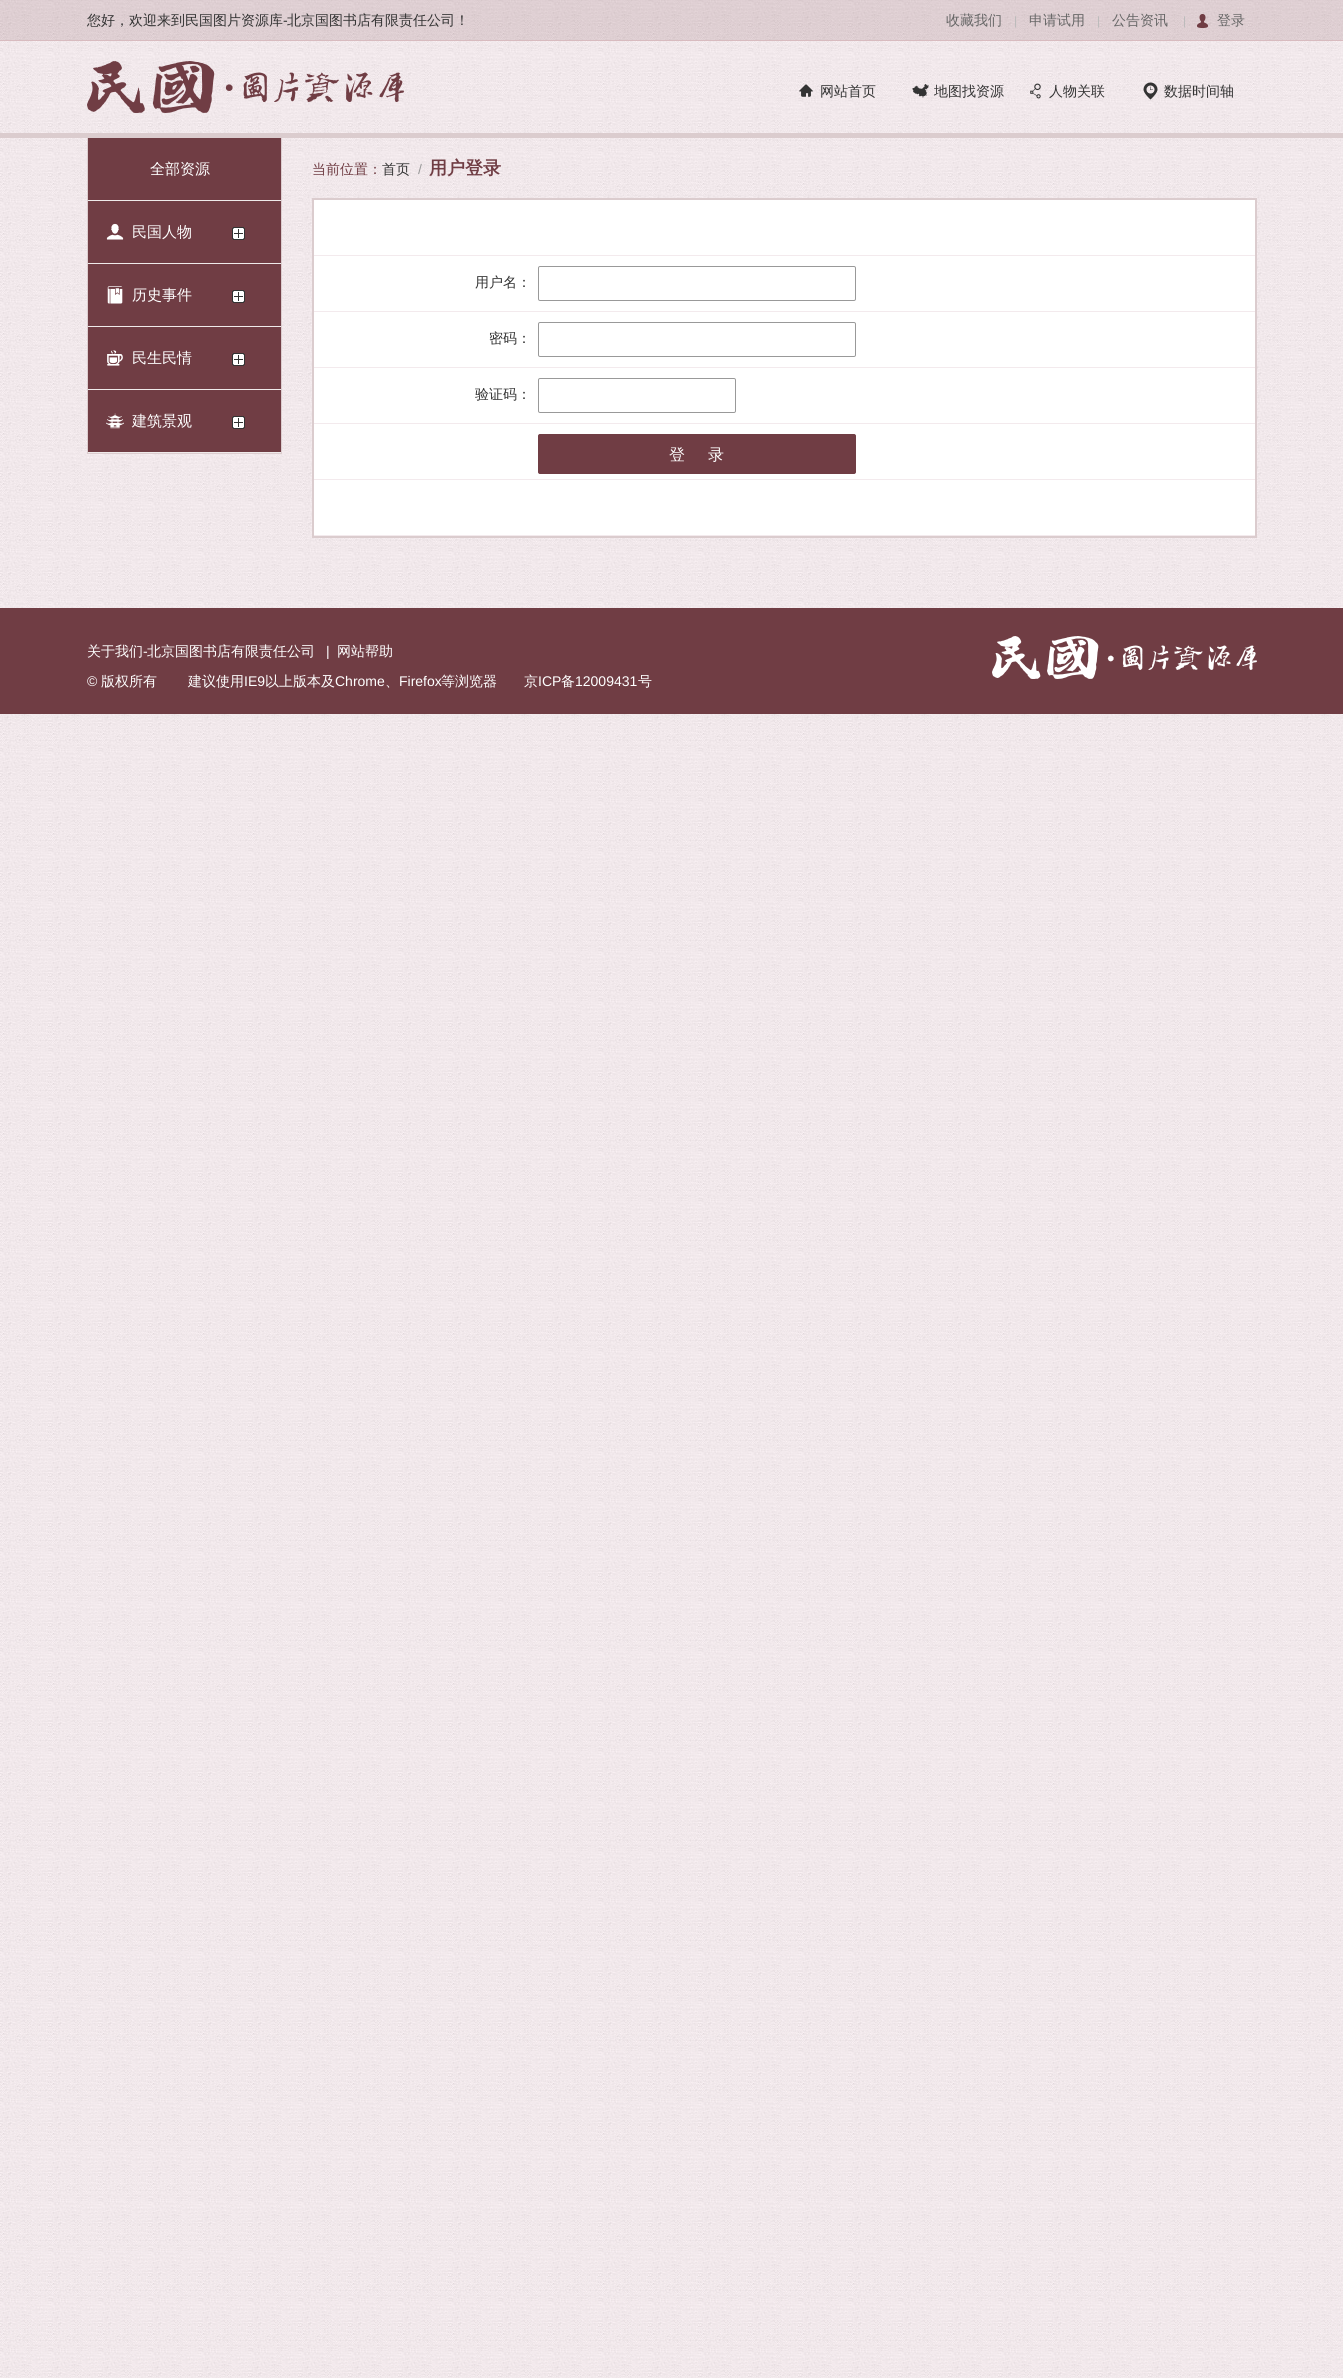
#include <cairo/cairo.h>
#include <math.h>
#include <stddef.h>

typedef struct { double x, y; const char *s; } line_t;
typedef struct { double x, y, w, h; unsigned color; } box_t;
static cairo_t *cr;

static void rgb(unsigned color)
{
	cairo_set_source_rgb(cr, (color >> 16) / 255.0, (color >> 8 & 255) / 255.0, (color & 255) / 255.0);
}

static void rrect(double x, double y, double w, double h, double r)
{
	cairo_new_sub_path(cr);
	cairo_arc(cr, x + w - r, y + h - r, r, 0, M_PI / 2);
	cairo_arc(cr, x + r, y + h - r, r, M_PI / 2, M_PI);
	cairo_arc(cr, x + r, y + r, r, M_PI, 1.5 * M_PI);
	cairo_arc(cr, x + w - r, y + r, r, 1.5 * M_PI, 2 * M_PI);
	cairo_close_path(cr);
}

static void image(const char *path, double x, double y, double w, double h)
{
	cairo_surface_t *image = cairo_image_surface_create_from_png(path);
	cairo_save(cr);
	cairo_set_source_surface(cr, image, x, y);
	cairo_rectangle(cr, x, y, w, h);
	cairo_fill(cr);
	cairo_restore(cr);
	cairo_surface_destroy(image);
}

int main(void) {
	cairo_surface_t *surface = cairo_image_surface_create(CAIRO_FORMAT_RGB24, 1343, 2378);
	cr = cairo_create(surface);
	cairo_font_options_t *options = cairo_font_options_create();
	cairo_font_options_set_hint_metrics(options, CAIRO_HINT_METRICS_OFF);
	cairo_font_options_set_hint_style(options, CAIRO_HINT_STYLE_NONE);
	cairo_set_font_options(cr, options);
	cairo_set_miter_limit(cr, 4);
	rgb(0xffffff);
	cairo_paint(cr);
	image("img/1.png", 0, 0, 1343, 2378);
	cairo_set_source_rgba(cr, 0.447, 0.235, 0.263, 0.15);
	cairo_rectangle(cr, 0, 0, 1343, 40);
	cairo_fill(cr);
	rgb(0xd8bbbf);
	cairo_rectangle(cr, 0, 40, 1343, 1);
	cairo_fill(cr);
	image("img/2.png", 1197, 14, 11, 14);
	rgb(0xdbccce);
	cairo_rectangle(cr, 0, 133, 1343, 5);
	cairo_fill(cr);
	image("img/3.png", 87, 61, 317, 52);
	image("img/4.png", 799, 84, 14, 13);
	image("img/5.png", 912, 84, 17, 14);
	image("img/6.png", 1030, 83, 11, 16);
	image("img/7.png", 1143, 82, 15, 18);
	{
		static const box_t items[] = {
			{281, 138, 1, 316, 0xdccdcf},
			{87, 453, 195, 1, 0xdccdcf},
			{87, 138, 1, 316, 0xdccdcf},
			{88, 200, 193, 1, 0xefeaea},
			{88, 138, 193, 62, 0x703d44},
			{88, 263, 193, 1, 0xefeaea},
			{88, 201, 193, 62, 0x703d44},
		};
		for (size_t i = 0; i < sizeof items / sizeof *items; i++) {
			rgb(items[i].color);
			cairo_rectangle(cr, items[i].x, items[i].y, items[i].w, items[i].h);
			cairo_fill(cr);
		}
	}
	image("img/8.png", 232, 227, 13, 13);
	image("img/9.png", 106, 223, 18, 17);
	rgb(0xefeaea);
	cairo_rectangle(cr, 88, 326, 193, 1);
	cairo_fill(cr);
	rgb(0x703d44);
	cairo_rectangle(cr, 88, 264, 193, 62);
	cairo_fill(cr);
	image("img/8.png", 232, 290, 13, 13);
	image("img/10.png", 107, 286, 16, 18);
	rgb(0xefeaea);
	cairo_rectangle(cr, 88, 389, 193, 1);
	cairo_fill(cr);
	rgb(0x703d44);
	cairo_rectangle(cr, 88, 327, 193, 62);
	cairo_fill(cr);
	image("img/8.png", 232, 353, 13, 13);
	image("img/11.png", 107, 350, 16, 16);
	rgb(0xefeaea);
	cairo_rectangle(cr, 88, 452, 193, 1);
	cairo_fill(cr);
	rgb(0x703d44);
	cairo_rectangle(cr, 88, 390, 193, 62);
	cairo_fill(cr);
	image("img/8.png", 232, 416, 13, 13);
	image("img/12.png", 106, 413, 18, 16);
	rgb(0xffffff);
	cairo_rectangle(cr, 314, 200, 941, 335);
	cairo_fill(cr);
	cairo_rectangle(cr, 313, 199, 943, 338);
	rgb(0xdbccce);
	cairo_stroke(cr);
	rgb(0xf3eaed);
	cairo_rectangle(cr, 314, 255, 941, 1);
	cairo_fill(cr);
	cairo_rectangle(cr, 314, 311, 941, 1);
	cairo_fill(cr);
	rrect(538.5, 266.5, 317, 34, 1.5);
	rgb(0x999999);
	cairo_set_line_width(cr, 1);
	cairo_stroke(cr);
	rgb(0xf3eaed);
	cairo_rectangle(cr, 314, 367, 941, 1);
	cairo_fill(cr);
	rrect(538.5, 322.5, 317, 34, 1.5);
	rgb(0x999999);
	cairo_stroke(cr);
	rgb(0xf3eaed);
	cairo_rectangle(cr, 314, 423, 941, 1);
	cairo_fill(cr);
	rrect(538.5, 378.5, 197, 34, 1.5);
	rgb(0x999999);
	cairo_stroke(cr);
	rgb(0xf3eaed);
	cairo_rectangle(cr, 314, 479, 941, 1);
	cairo_fill(cr);
	rgb(0x703d44);
	rrect(538.5, 434.5, 317, 39, 1.5);
	cairo_fill_preserve(cr);
	cairo_stroke(cr);
	rgb(0xf3eaed);
	cairo_rectangle(cr, 314, 535, 941, 1);
	cairo_fill(cr);
	rgb(0x703d44);
	cairo_rectangle(cr, 0, 608, 1343, 106);
	cairo_fill(cr);
	image("img/13.png", 992, 636, 265, 43);
	cairo_select_font_face(cr, "WenQuanYi Zen Hei Medium", CAIRO_FONT_SLANT_NORMAL, CAIRO_FONT_WEIGHT_NORMAL);
	cairo_set_font_size(cr, 14);
	rgb(0x333333);
	cairo_move_to(cr, 87, 25);
	cairo_show_text(cr, "您好，欢迎来到民国图片资源库");
	cairo_select_font_face(cr, "Liberation Sans", CAIRO_FONT_SLANT_NORMAL, CAIRO_FONT_WEIGHT_NORMAL);
	cairo_move_to(cr, 283, 25);
	cairo_show_text(cr, "-");
	cairo_select_font_face(cr, "WenQuanYi Zen Hei Medium", CAIRO_FONT_SLANT_NORMAL, CAIRO_FONT_WEIGHT_NORMAL);
	cairo_move_to(cr, 287, 25);
	cairo_show_text(cr, "北京国图书店有限责任公司！");
	rgb(0x666666);
	cairo_move_to(cr, 946, 25);
	cairo_show_text(cr, "收藏我们");
	cairo_select_font_face(cr, "Liberation Sans", CAIRO_FONT_SLANT_NORMAL, CAIRO_FONT_WEIGHT_NORMAL);
	cairo_set_font_size(cr, 12);
	rgb(0xbababa);
	cairo_move_to(cr, 1014, 25);
	cairo_show_text(cr, "|");
	cairo_select_font_face(cr, "WenQuanYi Zen Hei Medium", CAIRO_FONT_SLANT_NORMAL, CAIRO_FONT_WEIGHT_NORMAL);
	cairo_set_font_size(cr, 14);
	rgb(0x666666);
	cairo_move_to(cr, 1029, 25);
	cairo_show_text(cr, "申请试用");
	cairo_select_font_face(cr, "Liberation Sans", CAIRO_FONT_SLANT_NORMAL, CAIRO_FONT_WEIGHT_NORMAL);
	cairo_set_font_size(cr, 12);
	rgb(0xbababa);
	cairo_move_to(cr, 1097, 25);
	cairo_show_text(cr, "|");
	cairo_select_font_face(cr, "WenQuanYi Zen Hei Medium", CAIRO_FONT_SLANT_NORMAL, CAIRO_FONT_WEIGHT_NORMAL);
	cairo_set_font_size(cr, 14);
	rgb(0x666666);
	cairo_move_to(cr, 1112, 25);
	cairo_show_text(cr, "公告资讯");
	cairo_select_font_face(cr, "Liberation Sans", CAIRO_FONT_SLANT_NORMAL, CAIRO_FONT_WEIGHT_NORMAL);
	cairo_set_font_size(cr, 12);
	rgb(0xbababa);
	cairo_move_to(cr, 1183, 25);
	cairo_show_text(cr, "|");
	cairo_select_font_face(cr, "WenQuanYi Zen Hei Medium", CAIRO_FONT_SLANT_NORMAL, CAIRO_FONT_WEIGHT_NORMAL);
	cairo_set_font_size(cr, 14);
	rgb(0x666666);
	cairo_move_to(cr, 1217, 25);
	cairo_show_text(cr, "登录");
	rgb(0x333333);
	{
		static const line_t items[] = {
			{820, 96, "网站首页"},
			{934, 96, "地图找资源"},
			{1049, 96, "人物关联"},
			{1164, 96, "数据时间轴"},
		};
		for (size_t i = 0; i < sizeof items / sizeof *items; i++) {
			cairo_move_to(cr, items[i].x, items[i].y);
			cairo_show_text(cr, items[i].s);
		}
	}
	cairo_set_font_size(cr, 15);
	rgb(0xffffff);
	{
		static const line_t items[] = {
			{150, 174, "全部资源"},
			{132, 237, "民国人物"},
			{132, 300, "历史事件"},
			{132, 363, "民生民情"},
			{132, 426, "建筑景观"},
		};
		for (size_t i = 0; i < sizeof items / sizeof *items; i++) {
			cairo_move_to(cr, items[i].x, items[i].y);
			cairo_show_text(cr, items[i].s);
		}
	}
	cairo_set_font_size(cr, 14);
	rgb(0x703d44);
	cairo_move_to(cr, 312, 174);
	cairo_show_text(cr, "当前位置：");
	rgb(0x333333);
	cairo_move_to(cr, 382, 174);
	cairo_show_text(cr, "首页");
	cairo_select_font_face(cr, "Liberation Sans", CAIRO_FONT_SLANT_NORMAL, CAIRO_FONT_WEIGHT_NORMAL);
	rgb(0x999999);
	cairo_move_to(cr, 418, 174);
	cairo_show_text(cr, "/");
	cairo_select_font_face(cr, "WenQuanYi Zen Hei", CAIRO_FONT_SLANT_NORMAL, CAIRO_FONT_WEIGHT_BOLD);
	cairo_set_font_size(cr, 18);
	rgb(0x703d44);
	cairo_move_to(cr, 429, 174);
	cairo_show_text(cr, "用户登录");
	cairo_select_font_face(cr, "WenQuanYi Zen Hei Medium", CAIRO_FONT_SLANT_NORMAL, CAIRO_FONT_WEIGHT_NORMAL);
	cairo_set_font_size(cr, 14);
	rgb(0x333333);
	{
		static const line_t items[] = {
			{475, 287, "用户名："},
			{489, 343, "密码："},
			{475, 399, "验证码："},
		};
		for (size_t i = 0; i < sizeof items / sizeof *items; i++) {
			cairo_move_to(cr, items[i].x, items[i].y);
			cairo_show_text(cr, items[i].s);
		}
	}
	cairo_set_font_size(cr, 16);
	rgb(0xffffff);
	cairo_move_to(cr, 669, 460);
	cairo_show_text(cr, "登");
	cairo_move_to(cr, 708, 460);
	cairo_show_text(cr, "录");
	cairo_set_font_size(cr, 14);
	cairo_move_to(cr, 87, 656);
	cairo_show_text(cr, "关于我们");
	cairo_select_font_face(cr, "Liberation Sans", CAIRO_FONT_SLANT_NORMAL, CAIRO_FONT_WEIGHT_NORMAL);
	cairo_move_to(cr, 143, 656);
	cairo_show_text(cr, "-");
	cairo_select_font_face(cr, "WenQuanYi Zen Hei Medium", CAIRO_FONT_SLANT_NORMAL, CAIRO_FONT_WEIGHT_NORMAL);
	cairo_move_to(cr, 147, 656);
	cairo_show_text(cr, "北京国图书店有限责任公司");
	cairo_select_font_face(cr, "Liberation Sans", CAIRO_FONT_SLANT_NORMAL, CAIRO_FONT_WEIGHT_NORMAL);
	cairo_move_to(cr, 326, 656);
	cairo_show_text(cr, "|");
	cairo_select_font_face(cr, "WenQuanYi Zen Hei Medium", CAIRO_FONT_SLANT_NORMAL, CAIRO_FONT_WEIGHT_NORMAL);
	cairo_move_to(cr, 337, 656);
	cairo_show_text(cr, "网站帮助");
	cairo_select_font_face(cr, "Liberation Sans", CAIRO_FONT_SLANT_NORMAL, CAIRO_FONT_WEIGHT_NORMAL);
	cairo_move_to(cr, 87, 686);
	cairo_show_text(cr, "©");
	cairo_select_font_face(cr, "WenQuanYi Zen Hei Medium", CAIRO_FONT_SLANT_NORMAL, CAIRO_FONT_WEIGHT_NORMAL);
	cairo_move_to(cr, 101, 686);
	cairo_show_text(cr, "版权所有");
	cairo_move_to(cr, 188, 686);
	cairo_show_text(cr, "建议使用");
	cairo_select_font_face(cr, "Liberation Sans", CAIRO_FONT_SLANT_NORMAL, CAIRO_FONT_WEIGHT_NORMAL);
	cairo_move_to(cr, 244, 686);
	cairo_show_text(cr, "IE9");
	cairo_select_font_face(cr, "WenQuanYi Zen Hei Medium", CAIRO_FONT_SLANT_NORMAL, CAIRO_FONT_WEIGHT_NORMAL);
	cairo_move_to(cr, 265, 686);
	cairo_show_text(cr, "以上版本及");
	cairo_select_font_face(cr, "Liberation Sans", CAIRO_FONT_SLANT_NORMAL, CAIRO_FONT_WEIGHT_NORMAL);
	cairo_move_to(cr, 335, 686);
	cairo_show_text(cr, "Chrome");
	cairo_select_font_face(cr, "WenQuanYi Zen Hei Medium", CAIRO_FONT_SLANT_NORMAL, CAIRO_FONT_WEIGHT_NORMAL);
	cairo_move_to(cr, 385, 686);
	cairo_show_text(cr, "、");
	cairo_select_font_face(cr, "Liberation Sans", CAIRO_FONT_SLANT_NORMAL, CAIRO_FONT_WEIGHT_NORMAL);
	cairo_move_to(cr, 399, 686);
	cairo_show_text(cr, "Firefox");
	cairo_select_font_face(cr, "WenQuanYi Zen Hei Medium", CAIRO_FONT_SLANT_NORMAL, CAIRO_FONT_WEIGHT_NORMAL);
	cairo_move_to(cr, 441, 686);
	cairo_show_text(cr, "等浏览器");
	cairo_move_to(cr, 524, 686);
	cairo_show_text(cr, "京");
	cairo_select_font_face(cr, "Liberation Sans", CAIRO_FONT_SLANT_NORMAL, CAIRO_FONT_WEIGHT_NORMAL);
	cairo_move_to(cr, 538, 686);
	cairo_show_text(cr, "ICP");
	cairo_select_font_face(cr, "WenQuanYi Zen Hei Medium", CAIRO_FONT_SLANT_NORMAL, CAIRO_FONT_WEIGHT_NORMAL);
	cairo_move_to(cr, 561, 686);
	cairo_show_text(cr, "备");
	cairo_select_font_face(cr, "Liberation Sans", CAIRO_FONT_SLANT_NORMAL, CAIRO_FONT_WEIGHT_NORMAL);
	cairo_move_to(cr, 575, 686);
	cairo_show_text(cr, "12009431");
	cairo_select_font_face(cr, "WenQuanYi Zen Hei Medium", CAIRO_FONT_SLANT_NORMAL, CAIRO_FONT_WEIGHT_NORMAL);
	cairo_move_to(cr, 638, 686);
	cairo_show_text(cr, "号");
	cairo_surface_write_to_png(surface, "page.png");
	cairo_font_options_destroy(options);
	cairo_destroy(cr);
	cairo_surface_destroy(surface);
	return 0;
}
